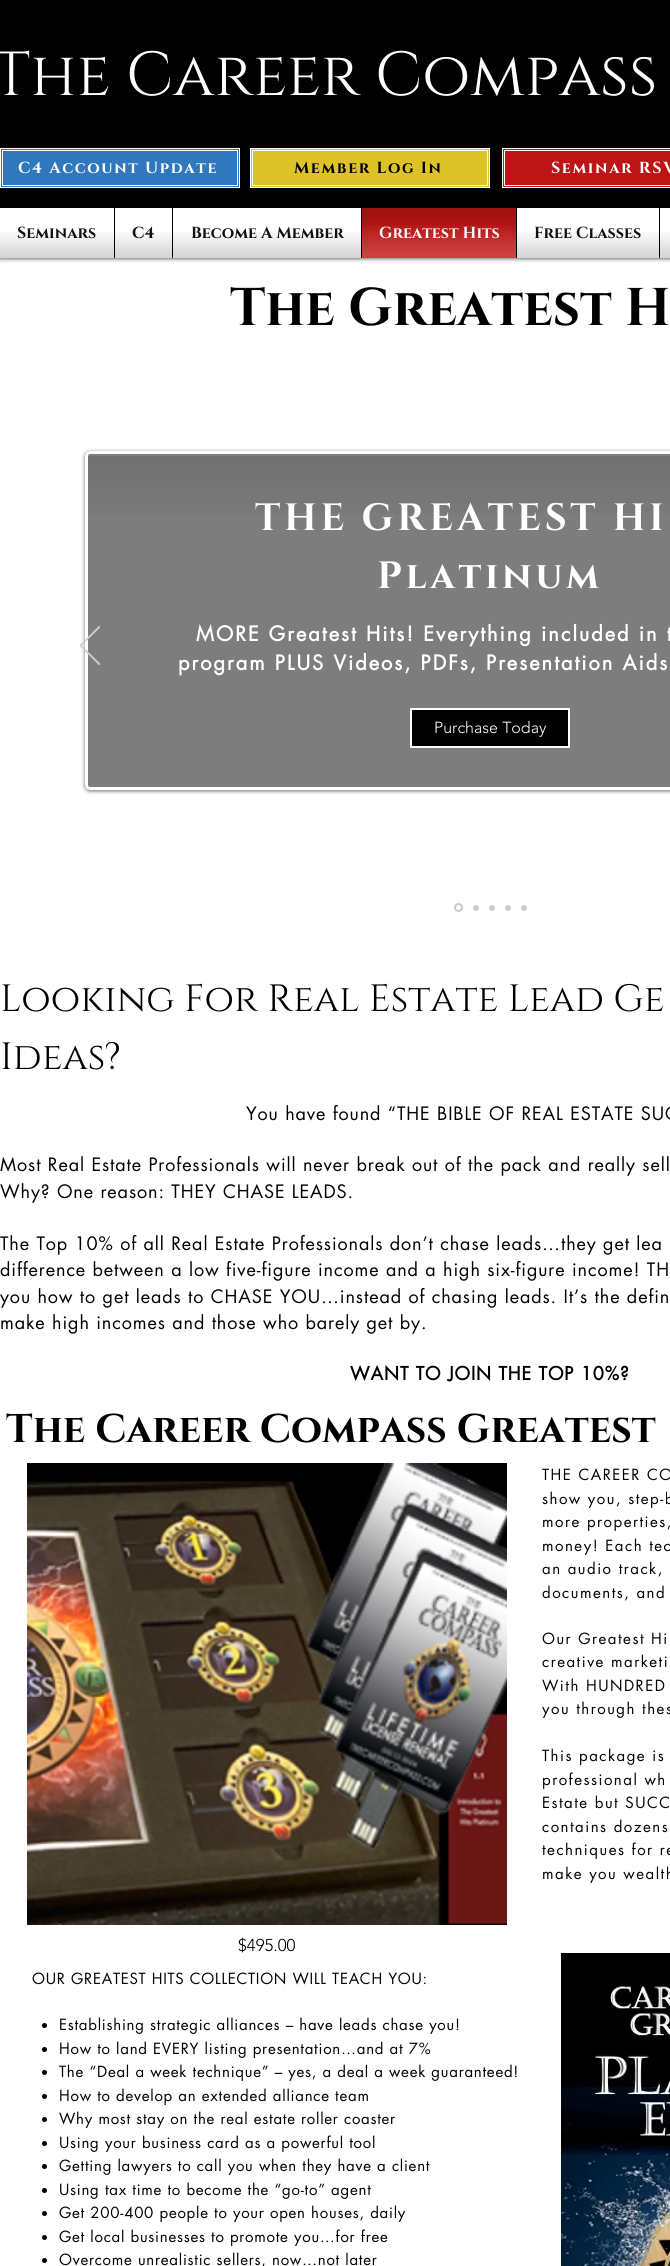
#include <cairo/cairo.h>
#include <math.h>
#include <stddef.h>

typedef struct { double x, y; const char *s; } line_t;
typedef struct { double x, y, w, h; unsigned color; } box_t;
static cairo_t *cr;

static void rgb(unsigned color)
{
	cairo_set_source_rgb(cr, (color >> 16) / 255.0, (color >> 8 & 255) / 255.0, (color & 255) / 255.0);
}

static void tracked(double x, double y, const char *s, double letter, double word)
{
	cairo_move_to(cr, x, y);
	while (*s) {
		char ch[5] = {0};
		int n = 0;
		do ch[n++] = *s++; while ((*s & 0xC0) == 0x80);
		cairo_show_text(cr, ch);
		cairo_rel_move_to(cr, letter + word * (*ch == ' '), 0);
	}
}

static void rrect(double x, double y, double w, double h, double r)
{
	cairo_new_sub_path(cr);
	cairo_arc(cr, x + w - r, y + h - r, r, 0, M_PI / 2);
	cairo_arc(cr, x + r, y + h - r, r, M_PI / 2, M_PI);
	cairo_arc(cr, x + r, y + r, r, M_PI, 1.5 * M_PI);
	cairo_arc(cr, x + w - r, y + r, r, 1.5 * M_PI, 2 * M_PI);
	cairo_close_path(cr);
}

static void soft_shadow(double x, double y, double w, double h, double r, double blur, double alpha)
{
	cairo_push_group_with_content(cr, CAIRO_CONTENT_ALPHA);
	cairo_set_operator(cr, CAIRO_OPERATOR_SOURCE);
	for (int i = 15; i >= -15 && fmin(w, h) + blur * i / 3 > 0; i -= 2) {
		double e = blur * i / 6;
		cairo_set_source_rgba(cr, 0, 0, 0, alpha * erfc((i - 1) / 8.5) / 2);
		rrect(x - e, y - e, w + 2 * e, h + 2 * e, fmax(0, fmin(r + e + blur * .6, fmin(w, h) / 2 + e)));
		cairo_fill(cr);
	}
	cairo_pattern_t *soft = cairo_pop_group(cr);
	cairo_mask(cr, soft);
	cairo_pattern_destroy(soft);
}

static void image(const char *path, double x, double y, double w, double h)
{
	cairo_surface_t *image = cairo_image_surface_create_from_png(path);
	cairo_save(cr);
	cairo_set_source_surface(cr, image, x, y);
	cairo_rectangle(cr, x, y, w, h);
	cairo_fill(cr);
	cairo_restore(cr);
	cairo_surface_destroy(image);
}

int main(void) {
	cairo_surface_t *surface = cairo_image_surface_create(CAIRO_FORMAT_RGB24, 670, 2266);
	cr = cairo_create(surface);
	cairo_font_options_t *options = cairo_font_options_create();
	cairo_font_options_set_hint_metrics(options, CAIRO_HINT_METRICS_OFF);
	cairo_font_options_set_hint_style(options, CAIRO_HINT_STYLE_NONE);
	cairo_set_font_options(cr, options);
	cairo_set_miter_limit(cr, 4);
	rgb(0xffffff);
	cairo_paint(cr);
	rgb(0x000000);
	cairo_rectangle(cr, 0, 0, 670, 208);
	cairo_fill(cr);
	rgb(0x3078be);
	cairo_rectangle(cr, 0.5, 148.5, 239, 39);
	cairo_fill_preserve(cr);
	rgb(0xffffff);
	cairo_set_line_width(cr, 1);
	cairo_stroke(cr);
	cairo_rectangle(cr, 2.5, 150.5, 235, 35);
	cairo_stroke(cr);
	rgb(0xdec328);
	cairo_rectangle(cr, 250.5, 148.5, 239, 39);
	cairo_fill_preserve(cr);
	rgb(0xffffff);
	cairo_stroke(cr);
	cairo_rectangle(cr, 252.5, 150.5, 235, 35);
	cairo_stroke(cr);
	rgb(0xbd1515);
	cairo_rectangle(cr, 502.5, 148.5, 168, 39);
	cairo_fill_preserve(cr);
	rgb(0xffffff);
	cairo_stroke(cr);
	cairo_rectangle(cr, 504.5, 150.5, 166, 35);
	cairo_stroke(cr);
	rgb(0x000000);
	soft_shadow(0, 209, 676, 50, 0, 2, 0.6);
	{
		static const box_t items[] = {
			{0, 208, 114, 50, 0xffffff},
			{115, 208, 57, 50, 0xffffff},
			{114, 208, 1, 50, 0x000000},
			{173, 208, 188, 50, 0xffffff},
			{172, 208, 1, 50, 0x000000},
			{362, 208, 154, 50, 0xbd1515},
			{361, 208, 1, 50, 0x000000},
			{517, 208, 142, 50, 0xffffff},
			{516, 208, 1, 50, 0x000000},
			{660, 208, 10, 50, 0xffffff},
			{659, 208, 1, 50, 0x000000},
		};
		for (size_t i = 0; i < sizeof items / sizeof *items; i++) {
			rgb(items[i].color);
			cairo_rectangle(cr, items[i].x, items[i].y, items[i].w, items[i].h);
			cairo_fill(cr);
		}
	}
	image("img/11.png", 660, 232, 10, 26);
	cairo_save(cr);
	cairo_set_fill_rule(cr, CAIRO_FILL_RULE_EVEN_ODD);
	cairo_new_path(cr);
	cairo_move_to(cr, 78, 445);
	cairo_line_to(cr, 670, 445);
	cairo_line_to(cr, 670, 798);
	cairo_line_to(cr, 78, 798);
	cairo_close_path(cr);
	cairo_move_to(cr, 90, 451);
	cairo_line_to(cr, 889, 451);
	cairo_curve_to(cr, 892, 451, 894, 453, 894, 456);
	cairo_line_to(cr, 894, 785);
	cairo_curve_to(cr, 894, 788, 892, 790, 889, 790);
	cairo_line_to(cr, 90, 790);
	cairo_curve_to(cr, 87, 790, 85, 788, 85, 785);
	cairo_line_to(cr, 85, 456);
	cairo_curve_to(cr, 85, 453, 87, 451, 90, 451);
	cairo_close_path(cr);
	cairo_clip(cr);
	rgb(0x000000);
	soft_shadow(85, 452, 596, 339, 5, 2, 0.6);
	cairo_restore(cr);
	cairo_set_source_rgba(cr, 0, 0, 0, 0.51);
	rrect(85, 451, 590, 339, 5);
	cairo_fill(cr);
	image("img/12.png", 88, 456, 582, 57);
	rrect(86.5, 452.5, 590, 336, 3.5);
	rgb(0xffffff);
	cairo_set_line_width(cr, 3);
	cairo_stroke(cr);
	cairo_save(cr);
	cairo_rectangle(cr, 80, 626, 20, 39);
	cairo_clip(cr);
	cairo_new_path(cr);
	cairo_move_to(cr, 99.5, 665);
	cairo_line_to(cr, 80, 645.5);
	cairo_line_to(cr, 99.5, 626);
	cairo_line_to(cr, 100, 627);
	cairo_line_to(cr, 81, 645.5);
	cairo_line_to(cr, 100, 664);
	cairo_close_path(cr);
	rgb(0xcccccc);
	cairo_set_line_width(cr, 1);
	cairo_stroke(cr);
	cairo_restore(cr);
	rgb(0x000000);
	cairo_rectangle(cr, 411, 709, 158, 38);
	cairo_fill_preserve(cr);
	rgb(0xffffff);
	cairo_set_line_width(cr, 2);
	cairo_stroke(cr);
	cairo_arc(cr, 458.5, 907.5, 3.5, 0, 2 * M_PI);
	rgb(0xcccccc);
	cairo_stroke(cr);
	cairo_arc(cr, 476, 908, 3, 0, 2 * M_PI);
	cairo_fill(cr);
	cairo_arc(cr, 492, 908, 3, 0, 2 * M_PI);
	cairo_fill(cr);
	cairo_arc(cr, 508, 908, 3, 0, 2 * M_PI);
	cairo_fill(cr);
	cairo_arc(cr, 524, 908, 3, 0, 2 * M_PI);
	cairo_fill(cr);
	image("img/13.png", 27, 1463, 480, 462);
	rgb(0x000000);
	cairo_arc(cr, 44.5, 2025.5, 2.5, 0, 2 * M_PI);
	cairo_fill(cr);
	cairo_arc(cr, 44.5, 2049.5, 2.5, 0, 2 * M_PI);
	cairo_fill(cr);
	cairo_arc(cr, 44.5, 2072.5, 2.5, 0, 2 * M_PI);
	cairo_fill(cr);
	cairo_arc(cr, 44.5, 2096.5, 2.5, 0, 2 * M_PI);
	cairo_fill(cr);
	cairo_arc(cr, 44.5, 2119.5, 2.5, 0, 2 * M_PI);
	cairo_fill(cr);
	cairo_arc(cr, 44.5, 2143.5, 2.5, 0, 2 * M_PI);
	cairo_fill(cr);
	cairo_arc(cr, 44.5, 2166.5, 2.5, 0, 2 * M_PI);
	cairo_fill(cr);
	cairo_arc(cr, 44.5, 2190.5, 2.5, 0, 2 * M_PI);
	cairo_fill(cr);
	cairo_arc(cr, 44.5, 2213.5, 2.5, 0, 2 * M_PI);
	cairo_fill(cr);
	cairo_arc(cr, 44.5, 2237.5, 2.5, 0, 2 * M_PI);
	cairo_fill(cr);
	cairo_arc(cr, 44.5, 2260.5, 2.5, 0, 2 * M_PI);
	cairo_fill(cr);
	image("img/14.png", 561, 1953, 109, 313);
	cairo_select_font_face(cr, "Cinzel", CAIRO_FONT_SLANT_NORMAL, CAIRO_FONT_WEIGHT_NORMAL);
	cairo_set_font_size(cr, 62);
	rgb(0xffffff);
	cairo_move_to(cr, -8, 95);
	cairo_show_text(cr, "The Career Compass");
	cairo_select_font_face(cr, "Cinzel", CAIRO_FONT_SLANT_NORMAL, CAIRO_FONT_WEIGHT_BOLD);
	cairo_set_font_size(cr, 16);
	tracked(18, 173, "C4 Account Update", 1.6, 0);
	rgb(0x000000);
	tracked(294, 173, "Member Log In", 1.6, 0);
	rgb(0xffffff);
	tracked(551, 173, "Seminar RSV", 1.6, 0);
	rgb(0x000000);
	cairo_move_to(cr, 17, 238);
	cairo_show_text(cr, "Seminars");
	image("img/1.png", 18, 226, 78, 12);
	image("img/2.png", 0, 232, 114, 26);
	cairo_move_to(cr, 132, 238);
	cairo_show_text(cr, "C4");
	image("img/3.png", 133, 226, 21, 12);
	image("img/4.png", 115, 232, 57, 26);
	cairo_move_to(cr, 191, 238);
	cairo_show_text(cr, "Become A Member");
	image("img/5.png", 192, 226, 151, 12);
	image("img/6.png", 173, 232, 188, 26);
	rgb(0xffffff);
	cairo_move_to(cr, 379, 238);
	cairo_show_text(cr, "Greatest Hits");
	image("img/7.png", 362, 208, 154, 26);
	image("img/8.png", 362, 225, 154, 33);
	rgb(0x000000);
	cairo_move_to(cr, 534, 238);
	cairo_show_text(cr, "Free Classes");
	image("img/9.png", 535, 226, 106, 12);
	image("img/10.png", 517, 232, 142, 26);
	cairo_set_font_size(cr, 53);
	cairo_move_to(cr, 230, 325);
	cairo_show_text(cr, "The Greatest H");
	cairo_set_font_size(cr, 38);
	rgb(0xffffff);
	tracked(255, 530, "THE GREATEST HI", 3.75, 0);
	tracked(377, 588, "Platinum", 3.75, 0);
	cairo_select_font_face(cr, "futura", CAIRO_FONT_SLANT_NORMAL, CAIRO_FONT_WEIGHT_BOLD);
	cairo_set_font_size(cr, 20);
	tracked(196, 641, "MORE Greatest Hits! Everything included in t", 2, 0);
	tracked(178, 670, "program PLUS Videos, PDFs, Presentation Aids", 2, 0);
	cairo_select_font_face(cr, "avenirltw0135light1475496 Light", CAIRO_FONT_SLANT_NORMAL, CAIRO_FONT_WEIGHT_NORMAL);
	cairo_set_font_size(cr, 16);
	cairo_move_to(cr, 434, 733);
	cairo_show_text(cr, "Purchase Today");
	cairo_select_font_face(cr, "Cinzel", CAIRO_FONT_SLANT_NORMAL, CAIRO_FONT_WEIGHT_NORMAL);
	cairo_set_font_size(cr, 38);
	rgb(0x000000);
	cairo_move_to(cr, 0, 1011);
	cairo_show_text(cr, "Looking For Real Estate Lead Ge");
	cairo_move_to(cr, 0, 1069);
	cairo_show_text(cr, "Ideas?");
	cairo_select_font_face(cr, "futura", CAIRO_FONT_SLANT_NORMAL, CAIRO_FONT_WEIGHT_NORMAL);
	cairo_set_font_size(cr, 18);
	{
		static const line_t items[] = {
			{246, 1120, "You have found “THE BIBLE OF REAL ESTATE SUC"},
			{0, 1171, "Most Real Estate Professionals will never break out of the pack and really sell"},
			{0, 1198, "Why? One reason: THEY CHASE LEADS."},
			{0, 1250, "The Top 10% of all Real Estate Professionals don’t chase leads…they get lea"},
			{0, 1276, "difference between a low five-figure income and a high six-figure income! TH"},
			{0, 1303, "you how to get leads to CHASE YOU…instead of chasing leads. It’s the defin"},
			{0, 1329, "make high incomes and those who barely get by."},
		};
		for (size_t i = 0; i < sizeof items / sizeof *items; i++) {
			tracked(items[i].x, items[i].y, items[i].s, 0.9, 0);
		}
	}
	cairo_select_font_face(cr, "futura", CAIRO_FONT_SLANT_NORMAL, CAIRO_FONT_WEIGHT_BOLD);
	tracked(350, 1380, "WANT TO JOIN THE TOP 10%?", 0.9, 0);
	cairo_select_font_face(cr, "Cinzel", CAIRO_FONT_SLANT_NORMAL, CAIRO_FONT_WEIGHT_BOLD);
	cairo_set_font_size(cr, 40);
	cairo_move_to(cr, 6, 1442);
	cairo_show_text(cr, "The Career Compass Greatest");
	cairo_select_font_face(cr, "futura", CAIRO_FONT_SLANT_NORMAL, CAIRO_FONT_WEIGHT_NORMAL);
	cairo_set_font_size(cr, 15);
	{
		static const line_t items[] = {
			{542, 1480, "THE CAREER CO"},
			{542, 1504, "show you, step-b"},
			{542, 1527, "more properties,"},
			{542, 1551, "money! Each tec"},
			{542, 1574, "an audio track,"},
			{542, 1598, "documents, and"},
			{542, 1644, "Our Greatest Hi"},
			{542, 1667, "creative marketi"},
			{542, 1691, "With HUNDRED"},
			{542, 1714, "you through thes"},
			{542, 1761, "This package is"},
			{542, 1785, "professional wh"},
			{542, 1808, "Estate but SUCC"},
			{542, 1832, "contains dozens"},
			{542, 1855, "techniques for re"},
			{542, 1879, "make you wealth"},
		};
		for (size_t i = 0; i < sizeof items / sizeof *items; i++) {
			tracked(items[i].x, items[i].y, items[i].s, 1.5, 0);
		}
	}
	cairo_select_font_face(cr, "avenirltw0135light1475496 Light", CAIRO_FONT_SLANT_NORMAL, CAIRO_FONT_WEIGHT_NORMAL);
	cairo_set_font_size(cr, 17);
	cairo_move_to(cr, 238, 1951);
	cairo_show_text(cr, "$495.00");
	cairo_select_font_face(cr, "futura", CAIRO_FONT_SLANT_NORMAL, CAIRO_FONT_WEIGHT_NORMAL);
	cairo_set_font_size(cr, 15);
	{
		static const line_t items[] = {
			{32, 1984, "OUR GREATEST HITS COLLECTION WILL TEACH YOU:"},
			{59, 2030, "Establishing strategic alliances – have leads chase you!"},
			{59, 2054, "How to land EVERY listing presentation…and at 7%"},
			{59, 2077, "The “Deal a week technique” – yes, a deal a week guaranteed!"},
			{59, 2101, "How to develop an extended alliance team"},
			{59, 2124, "Why most stay on the real estate roller coaster"},
			{59, 2148, "Using your business card as a powerful tool"},
			{59, 2171, "Getting lawyers to call you when they have a client"},
			{59, 2195, "Using tax time to become the “go-to” agent"},
			{59, 2218, "Get 200-400 people to your open houses, daily"},
			{59, 2242, "Get local businesses to promote you…for free"},
			{59, 2265, "Overcome unrealistic sellers, now…not later"},
		};
		for (size_t i = 0; i < sizeof items / sizeof *items; i++) {
			tracked(items[i].x, items[i].y, items[i].s, 0.75, 0);
		}
	}
	cairo_surface_write_to_png(surface, "page.png");
	cairo_font_options_destroy(options);
	cairo_destroy(cr);
	cairo_surface_destroy(surface);
	return 0;
}
